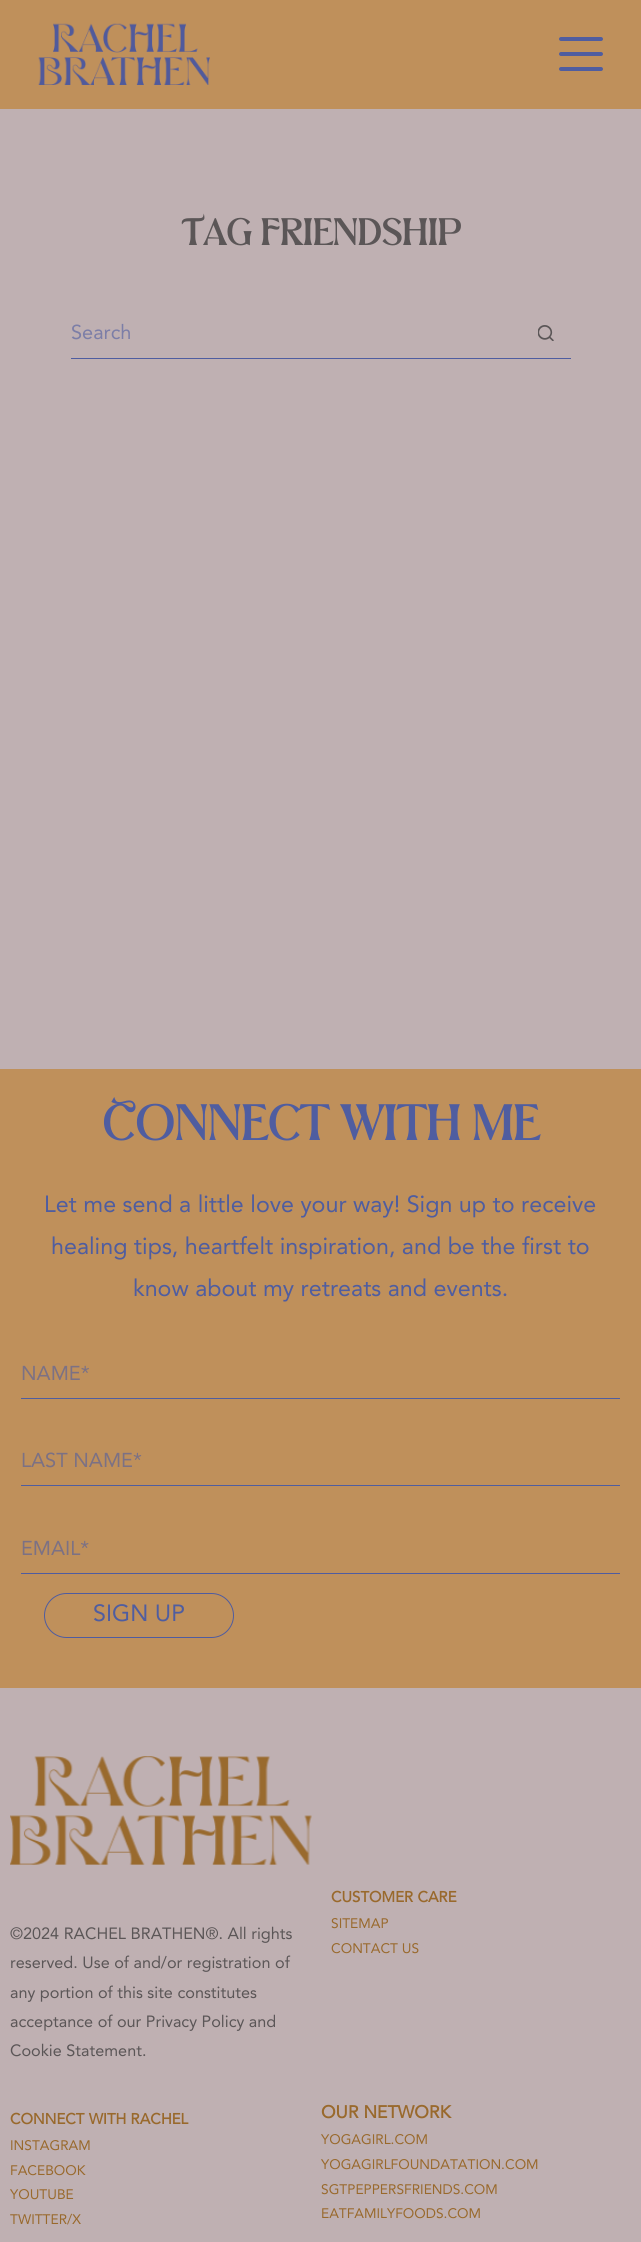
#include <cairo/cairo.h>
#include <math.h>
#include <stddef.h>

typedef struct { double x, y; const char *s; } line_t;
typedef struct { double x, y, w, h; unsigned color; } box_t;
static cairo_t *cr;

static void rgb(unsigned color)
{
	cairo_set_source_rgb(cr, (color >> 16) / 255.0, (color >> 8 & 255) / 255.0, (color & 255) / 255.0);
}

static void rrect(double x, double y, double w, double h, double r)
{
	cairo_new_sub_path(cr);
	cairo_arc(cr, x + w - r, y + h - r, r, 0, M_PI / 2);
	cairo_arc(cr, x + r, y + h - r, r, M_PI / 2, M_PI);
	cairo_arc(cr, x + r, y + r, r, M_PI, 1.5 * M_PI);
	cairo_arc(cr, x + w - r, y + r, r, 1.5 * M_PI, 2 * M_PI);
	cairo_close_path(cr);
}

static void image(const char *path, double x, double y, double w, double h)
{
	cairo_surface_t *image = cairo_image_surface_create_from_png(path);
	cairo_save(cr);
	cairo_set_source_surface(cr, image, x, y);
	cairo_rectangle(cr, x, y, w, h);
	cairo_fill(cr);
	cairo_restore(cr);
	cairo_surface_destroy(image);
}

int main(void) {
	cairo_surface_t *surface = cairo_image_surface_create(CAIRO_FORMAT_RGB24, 641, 2242);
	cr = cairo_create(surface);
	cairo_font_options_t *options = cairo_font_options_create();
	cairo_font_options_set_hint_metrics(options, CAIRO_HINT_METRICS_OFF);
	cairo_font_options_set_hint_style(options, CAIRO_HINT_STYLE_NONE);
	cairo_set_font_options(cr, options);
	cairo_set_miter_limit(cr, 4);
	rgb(0xbfb0b2);
	cairo_paint(cr);
	rgb(0xbf905b);
	cairo_rectangle(cr, 0, 0, 641, 109);
	cairo_fill(cr);
	image("img/1.png", 38, 23, 172, 62);
	rgb(0x4f5da0);
	rrect(559, 37, 44, 4, 2);
	cairo_fill(cr);
	rrect(559, 52, 44, 4, 2);
	cairo_fill(cr);
	rrect(559, 67, 44, 4, 2);
	cairo_fill(cr);
	cairo_rectangle(cr, 71, 358, 500, 1);
	cairo_fill(cr);
	image("img/2.png", 538, 325, 16, 16);
	{
		static const box_t items[] = {
			{0, 1069, 641, 619, 0xbf905b},
			{21, 1398, 599, 1, 0x4f5da0},
			{21, 1485, 599, 1, 0x4f5da0},
			{21, 1573, 599, 1, 0x4f5ca0},
		};
		for (size_t i = 0; i < sizeof items / sizeof *items; i++) {
			rgb(items[i].color);
			cairo_rectangle(cr, items[i].x, items[i].y, items[i].w, items[i].h);
			cairo_fill(cr);
		}
	}
	rrect(44.5, 1593.5, 189, 44, 22);
	cairo_set_line_width(cr, 1);
	cairo_stroke(cr);
	image("img/3.png", 10, 1756, 302, 109);
	cairo_select_font_face(cr, "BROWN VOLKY", CAIRO_FONT_SLANT_NORMAL, CAIRO_FONT_WEIGHT_BOLD);
	cairo_set_font_size(cr, 37.5);
	rgb(0x5b5657);
	cairo_move_to(cr, 181, 245);
	cairo_show_text(cr, "Tag Friendship");
	cairo_select_font_face(cr, "Avenir", CAIRO_FONT_SLANT_NORMAL, CAIRO_FONT_WEIGHT_NORMAL);
	cairo_set_font_size(cr, 20);
	rgb(0x7c7ea7);
	cairo_move_to(cr, 71, 339);
	cairo_show_text(cr, "Search");
	cairo_select_font_face(cr, "BROWN VOLKY", CAIRO_FONT_SLANT_NORMAL, CAIRO_FONT_WEIGHT_BOLD);
	cairo_set_font_size(cr, 50);
	rgb(0x4f5da0);
	cairo_move_to(cr, 102, 1140);
	cairo_show_text(cr, "Connect with me");
	cairo_select_font_face(cr, "Avenir", CAIRO_FONT_SLANT_NORMAL, CAIRO_FONT_WEIGHT_NORMAL);
	cairo_set_font_size(cr, 23.3);
	{
		static const line_t items[] = {
			{44, 1212, "Let me send a little love your way! Sign up to receive"},
			{51, 1254, "healing tips, heartfelt inspiration, and be the first to"},
			{133, 1296, "know about my retreats and events."},
		};
		for (size_t i = 0; i < sizeof items / sizeof *items; i++) {
			cairo_move_to(cr, items[i].x, items[i].y);
			cairo_show_text(cr, items[i].s);
		}
	}
	cairo_set_font_size(cr, 20);
	rgb(0x7c7184);
	{
		static const line_t items[] = {
			{21, 1380, "NAME*"},
			{21, 1467, "LAST NAME*"},
			{21, 1555, "EMAIL*"},
		};
		for (size_t i = 0; i < sizeof items / sizeof *items; i++) {
			cairo_move_to(cr, items[i].x, items[i].y);
			cairo_show_text(cr, items[i].s);
		}
	}
	cairo_set_font_size(cr, 23.3);
	rgb(0x4f5da0);
	cairo_move_to(cr, 93, 1621);
	cairo_show_text(cr, "SIGN UP");
	cairo_set_font_size(cr, 16.25);
	rgb(0x5b5657);
	{
		static const line_t items[] = {
			{10, 1939, "©2024 RACHEL BRATHEN®. All rights"},
			{10, 1968, "reserved. Use of and/or registration of"},
			{10, 1998, "any portion of this site constitutes"},
			{10, 2027, "acceptance of our Privacy Policy and"},
			{10, 2056, "Cookie Statement."},
		};
		for (size_t i = 0; i < sizeof items / sizeof *items; i++) {
			cairo_move_to(cr, items[i].x, items[i].y);
			cairo_show_text(cr, items[i].s);
		}
	}
	cairo_select_font_face(cr, "Avenir", CAIRO_FONT_SLANT_NORMAL, CAIRO_FONT_WEIGHT_BOLD);
	cairo_set_font_size(cr, 15);
	rgb(0x99692c);
	cairo_move_to(cr, 331, 1902);
	cairo_show_text(cr, "CUSTOMER CARE");
	cairo_select_font_face(cr, "Avenir", CAIRO_FONT_SLANT_NORMAL, CAIRO_FONT_WEIGHT_NORMAL);
	cairo_set_font_size(cr, 13.75);
	cairo_move_to(cr, 331, 1928);
	cairo_show_text(cr, "SITEMAP");
	cairo_move_to(cr, 331, 1953);
	cairo_show_text(cr, "CONTACT US");
	cairo_select_font_face(cr, "Avenir", CAIRO_FONT_SLANT_NORMAL, CAIRO_FONT_WEIGHT_BOLD);
	cairo_set_font_size(cr, 15);
	cairo_move_to(cr, 10, 2124);
	cairo_show_text(cr, "CONNECT WITH RACHEL");
	cairo_select_font_face(cr, "Avenir", CAIRO_FONT_SLANT_NORMAL, CAIRO_FONT_WEIGHT_NORMAL);
	cairo_set_font_size(cr, 13.75);
	{
		static const line_t items[] = {
			{10, 2150, "INSTAGRAM"},
			{10, 2175, "FACEBOOK"},
			{10, 2199, "YOUTUBE"},
			{10, 2224, "TWITTER/X"},
		};
		for (size_t i = 0; i < sizeof items / sizeof *items; i++) {
			cairo_move_to(cr, items[i].x, items[i].y);
			cairo_show_text(cr, items[i].s);
		}
	}
	cairo_select_font_face(cr, "Avenir", CAIRO_FONT_SLANT_NORMAL, CAIRO_FONT_WEIGHT_BOLD);
	cairo_set_font_size(cr, 17.5);
	cairo_move_to(cr, 321, 2118);
	cairo_show_text(cr, "OUR NETWORK");
	cairo_select_font_face(cr, "Avenir", CAIRO_FONT_SLANT_NORMAL, CAIRO_FONT_WEIGHT_NORMAL);
	cairo_set_font_size(cr, 13.75);
	{
		static const line_t items[] = {
			{321, 2144, "YOGAGIRL.COM"},
			{321, 2169, "YOGAGIRLFOUNDATATION.COM"},
			{321, 2194, "SGTPEPPERSFRIENDS.COM"},
			{321, 2218, "EATFAMILYFOODS.COM"},
		};
		for (size_t i = 0; i < sizeof items / sizeof *items; i++) {
			cairo_move_to(cr, items[i].x, items[i].y);
			cairo_show_text(cr, items[i].s);
		}
	}
	cairo_surface_write_to_png(surface, "page.png");
	cairo_font_options_destroy(options);
	cairo_destroy(cr);
	cairo_surface_destroy(surface);
	return 0;
}
